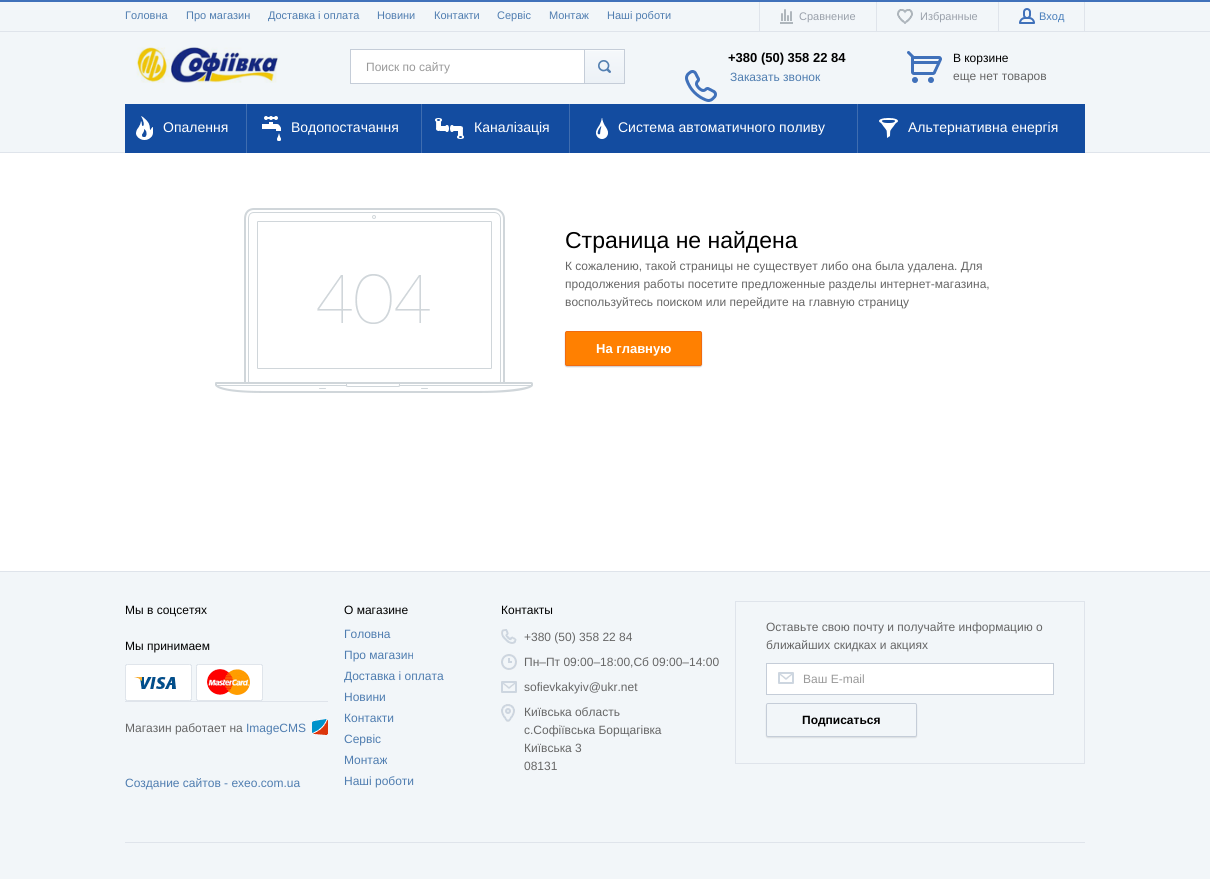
#include <cairo/cairo.h>
#include <math.h>
#include <stddef.h>

typedef struct { double x, y; const char *s; } line_t;
typedef struct { double x, y, w, h; unsigned color; } box_t;
static cairo_t *cr;

static void rgb(unsigned color)
{
	cairo_set_source_rgb(cr, (color >> 16) / 255.0, (color >> 8 & 255) / 255.0, (color & 255) / 255.0);
}

static void rrect(double x, double y, double w, double h, double r)
{
	cairo_new_sub_path(cr);
	cairo_arc(cr, x + w - r, y + h - r, r, 0, M_PI / 2);
	cairo_arc(cr, x + r, y + h - r, r, M_PI / 2, M_PI);
	cairo_arc(cr, x + r, y + r, r, M_PI, 1.5 * M_PI);
	cairo_arc(cr, x + w - r, y + r, r, 1.5 * M_PI, 2 * M_PI);
	cairo_close_path(cr);
}

static void soft_shadow(double x, double y, double w, double h, double r, double blur, double alpha)
{
	cairo_push_group_with_content(cr, CAIRO_CONTENT_ALPHA);
	cairo_set_operator(cr, CAIRO_OPERATOR_SOURCE);
	for (int i = 15; i >= -15 && fmin(w, h) + blur * i / 3 > 0; i -= 2) {
		double e = blur * i / 6;
		cairo_set_source_rgba(cr, 0, 0, 0, alpha * erfc((i - 1) / 8.5) / 2);
		rrect(x - e, y - e, w + 2 * e, h + 2 * e, fmax(0, fmin(r + e + blur * .6, fmin(w, h) / 2 + e)));
		cairo_fill(cr);
	}
	cairo_pattern_t *soft = cairo_pop_group(cr);
	cairo_mask(cr, soft);
	cairo_pattern_destroy(soft);
}

static void image(const char *path, double x, double y, double w, double h)
{
	cairo_surface_t *image = cairo_image_surface_create_from_png(path);
	cairo_save(cr);
	cairo_set_source_surface(cr, image, x, y);
	cairo_rectangle(cr, x, y, w, h);
	cairo_fill(cr);
	cairo_restore(cr);
	cairo_surface_destroy(image);
}

int main(void) {
	cairo_surface_t *surface = cairo_image_surface_create(CAIRO_FORMAT_RGB24, 1210, 879);
	cr = cairo_create(surface);
	cairo_font_options_t *options = cairo_font_options_create();
	cairo_font_options_set_hint_metrics(options, CAIRO_HINT_METRICS_OFF);
	cairo_font_options_set_hint_style(options, CAIRO_HINT_STYLE_NONE);
	cairo_set_font_options(cr, options);
	cairo_set_miter_limit(cr, 4);
	cairo_pattern_t *gradient;
	rgb(0xffffff);
	cairo_paint(cr);
	{
		static const box_t items[] = {
			{0, 2, 1210, 150, 0xf2f6f9},
			{0, 0, 1210, 2, 0x4071ba},
			{0, 152, 1210, 1, 0xdfe4eb},
			{0, 31, 1210, 1, 0xdfe4eb},
			{759, 2, 1, 30, 0xdfe4eb},
			{876, 2, 1, 29, 0xdfe4eb},
		};
		for (size_t i = 0; i < sizeof items / sizeof *items; i++) {
			rgb(items[i].color);
			cairo_rectangle(cr, items[i].x, items[i].y, items[i].w, items[i].h);
			cairo_fill(cr);
		}
	}
	image("img/1.png", 780, 9, 13, 15);
	cairo_rectangle(cr, 998, 2, 1, 29);
	cairo_fill(cr);
	image("img/2.png", 897, 9, 16, 15);
	cairo_rectangle(cr, 1084, 2, 1, 29);
	cairo_fill(cr);
	image("img/3.png", 1019, 8, 16, 16);
	image("img/4.png", 136, 47, 144, 36);
	rgb(0xffffff);
	cairo_rectangle(cr, 351, 50, 233, 33);
	cairo_fill(cr);
	cairo_rectangle(cr, 350.5, 49.5, 274, 34);
	rgb(0xc5cdd8);
	cairo_set_line_width(cr, 1);
	cairo_stroke(cr);
	gradient = cairo_pattern_create_linear(605, 50, 605, 83);
	cairo_pattern_add_color_stop_rgba(gradient, 0, 0.961, 0.973, 0.984, 1);
	cairo_pattern_add_color_stop_rgba(gradient, 1, 0.925, 0.945, 0.965, 1);
	cairo_set_source(cr, gradient);
	cairo_pattern_destroy(gradient);
	cairo_rectangle(cr, 585, 51, 39, 32);
	cairo_fill(cr);
	rgb(0xfafcfd);
	cairo_rectangle(cr, 585, 50, 39, 1);
	cairo_fill(cr);
	cairo_rectangle(cr, 584.5, 49.5, 40, 34);
	rgb(0xc5cdd8);
	cairo_stroke(cr);
	image("img/5.png", 598, 60, 13, 13);
	image("img/6.png", 685, 70, 32, 32);
	image("img/7.png", 907, 51, 35, 32);
	rgb(0x134ca0);
	cairo_rectangle(cr, 125, 104, 960, 49);
	cairo_fill(cr);
	image("img/8.png", 136, 116, 17, 24);
	rgb(0x3f6db0);
	cairo_rectangle(cr, 246, 104, 1, 49);
	cairo_fill(cr);
	image("img/9.png", 262, 116, 19, 25);
	cairo_rectangle(cr, 421, 104, 1, 49);
	cairo_fill(cr);
	image("img/10.png", 435, 118, 29, 21);
	cairo_rectangle(cr, 569, 104, 1, 49);
	cairo_fill(cr);
	image("img/11.png", 596, 118, 12, 21);
	cairo_rectangle(cr, 857, 104, 1, 49);
	cairo_fill(cr);
	image("img/12.png", 879, 118, 19, 20);
	image("img/13.png", 215, 208, 318, 185);
	rgb(0x000000);
	soft_shadow(565, 332, 137, 35, 2, 0.5, 0.2);
	rgb(0xff8001);
	rrect(565.5, 331.5, 136, 34, 1.5);
	cairo_fill_preserve(cr);
	rgb(0xf06b10);
	cairo_stroke(cr);
	rgb(0xf2f6f9);
	cairo_rectangle(cr, 0, 572, 1210, 307);
	cairo_fill(cr);
	rgb(0xdfe4eb);
	cairo_rectangle(cr, 0, 571, 1210, 1);
	cairo_fill(cr);
	image("img/14.png", 125, 664, 67, 37);
	image("img/15.png", 196, 664, 67, 37);
	cairo_rectangle(cr, 125, 701, 203, 1);
	cairo_fill(cr);
	image("img/16.png", 312, 719, 16, 16);
	image("img/17.png", 501, 629, 16, 15);
	image("img/18.png", 501, 654, 16, 16);
	image("img/19.png", 501, 681, 16, 12);
	image("img/20.png", 501, 704, 14, 18);
	cairo_rectangle(cr, 735.5, 601.5, 349, 162);
	cairo_stroke(cr);
	rgb(0xffffff);
	cairo_rectangle(cr, 766.5, 663.5, 287, 31);
	cairo_fill_preserve(cr);
	rgb(0xc5cdd8);
	cairo_stroke(cr);
	image("img/21.png", 778, 672, 16, 12);
	rgb(0x000000);
	soft_shadow(766, 704, 151, 34, 2, 0.5, 0.1);
	rgb(0xf2f6f9);
	rrect(766.5, 703.5, 150, 33, 1.5);
	cairo_fill_preserve(cr);
	rgb(0xc5cdd8);
	cairo_stroke(cr);
	rgb(0xdfe4eb);
	cairo_rectangle(cr, 125, 842, 960, 1);
	cairo_fill(cr);
	cairo_select_font_face(cr, "Liberation Sans", CAIRO_FONT_SLANT_NORMAL, CAIRO_FONT_WEIGHT_NORMAL);
	cairo_set_font_size(cr, 11);
	rgb(0x4f7db0);
	{
		static const line_t items[] = {
			{125, 19, "Головна"},
			{186, 19, "Про магазин"},
			{268, 19, "Доставка і оплата"},
			{377, 19, "Новини"},
			{434, 19, "Контакти"},
			{497, 19, "Сервіс"},
			{549, 19, "Монтаж"},
			{607, 19, "Наші роботи"},
		};
		for (size_t i = 0; i < sizeof items / sizeof *items; i++) {
			cairo_move_to(cr, items[i].x, items[i].y);
			cairo_show_text(cr, items[i].s);
		}
	}
	rgb(0x9aa1ab);
	cairo_move_to(cr, 799, 20);
	cairo_show_text(cr, "Сравнение");
	cairo_move_to(cr, 920, 20);
	cairo_show_text(cr, "Избранные");
	rgb(0x487ebb);
	cairo_move_to(cr, 1039, 20);
	cairo_show_text(cr, "Вход");
	cairo_set_font_size(cr, 12);
	rgb(0x999999);
	cairo_move_to(cr, 366, 71);
	cairo_show_text(cr, "Поиск по сайту");
	cairo_select_font_face(cr, "Liberation Sans", CAIRO_FONT_SLANT_NORMAL, CAIRO_FONT_WEIGHT_BOLD);
	cairo_set_font_size(cr, 13);
	rgb(0x000000);
	cairo_move_to(cr, 728, 62);
	cairo_show_text(cr, "+380 (50) 358 22 84");
	cairo_select_font_face(cr, "Liberation Sans", CAIRO_FONT_SLANT_NORMAL, CAIRO_FONT_WEIGHT_NORMAL);
	cairo_set_font_size(cr, 12);
	rgb(0x4f7db0);
	cairo_move_to(cr, 730, 81);
	cairo_show_text(cr, "Заказать звонок");
	rgb(0x000000);
	cairo_move_to(cr, 953, 62);
	cairo_show_text(cr, "В корзине");
	rgb(0x666666);
	cairo_move_to(cr, 953, 80);
	cairo_show_text(cr, "еще нет товаров");
	cairo_set_font_size(cr, 14);
	rgb(0xffffff);
	{
		static const line_t items[] = {
			{163, 132, "Опалення"},
			{291, 132, "Водопостачання"},
			{474, 132, "Каналізація"},
			{618, 132, "Система автоматичного поливу"},
			{908, 132, "Альтернативна енергія"},
		};
		for (size_t i = 0; i < sizeof items / sizeof *items; i++) {
			cairo_move_to(cr, items[i].x, items[i].y);
			cairo_show_text(cr, items[i].s);
		}
	}
	cairo_set_font_size(cr, 23);
	rgb(0x000000);
	cairo_move_to(cr, 565, 248);
	cairo_show_text(cr, "Страница не найдена");
	cairo_set_font_size(cr, 12);
	rgb(0x666666);
	{
		static const line_t items[] = {
			{565, 270, "К сожалению, такой страницы не существует либо она была удалена. Для"},
			{565, 288, "продолжения работы посетите предложенные разделы интернет-магазина,"},
			{565, 306, "воспользуйтесь поиском или перейдите на главную страницу"},
		};
		for (size_t i = 0; i < sizeof items / sizeof *items; i++) {
			cairo_move_to(cr, items[i].x, items[i].y);
			cairo_show_text(cr, items[i].s);
		}
	}
	cairo_select_font_face(cr, "Liberation Sans", CAIRO_FONT_SLANT_NORMAL, CAIRO_FONT_WEIGHT_BOLD);
	cairo_set_font_size(cr, 13);
	rgb(0xffffff);
	cairo_move_to(cr, 596, 353);
	cairo_show_text(cr, "На главную");
	cairo_select_font_face(cr, "Liberation Sans", CAIRO_FONT_SLANT_NORMAL, CAIRO_FONT_WEIGHT_NORMAL);
	cairo_set_font_size(cr, 12);
	rgb(0x000000);
	cairo_move_to(cr, 125, 614);
	cairo_show_text(cr, "Мы в соцсетях");
	cairo_move_to(cr, 125, 650);
	cairo_show_text(cr, "Мы принимаем");
	rgb(0x666666);
	cairo_move_to(cr, 125, 732);
	cairo_show_text(cr, "Магазин работает на");
	rgb(0x4f7db0);
	cairo_move_to(cr, 246, 732);
	cairo_show_text(cr, "ImageCMS");
	cairo_move_to(cr, 125, 787);
	cairo_show_text(cr, "Создание сайтов - exeo.com.ua");
	rgb(0x000000);
	cairo_move_to(cr, 344, 614);
	cairo_show_text(cr, "О магазине");
	rgb(0x4f7db0);
	{
		static const line_t items[] = {
			{344, 638, "Головна"},
			{344, 659, "Про магазин"},
			{344, 680, "Доставка і оплата"},
			{344, 701, "Новини"},
			{344, 722, "Контакти"},
			{344, 743, "Сервіс"},
			{344, 764, "Монтаж"},
			{344, 785, "Наші роботи"},
		};
		for (size_t i = 0; i < sizeof items / sizeof *items; i++) {
			cairo_move_to(cr, items[i].x, items[i].y);
			cairo_show_text(cr, items[i].s);
		}
	}
	rgb(0x000000);
	cairo_move_to(cr, 501, 614);
	cairo_show_text(cr, "Контакты");
	rgb(0x666666);
	{
		static const line_t items[] = {
			{524, 641, "+380 (50) 358 22 84"},
			{524, 666, "Пн–Пт 09:00–18:00,Сб 09:00–14:00"},
			{524, 691, "sofievkakyiv@ukr.net"},
			{524, 716, "Київська область"},
			{524, 734, "с.Софіївська Борщагівка"},
			{524, 752, "Київська 3"},
			{524, 770, "08131"},
			{766, 631, "Оставьте свою почту и получайте информацию о"},
			{766, 649, "ближайших скидках и акциях"},
		};
		for (size_t i = 0; i < sizeof items / sizeof *items; i++) {
			cairo_move_to(cr, items[i].x, items[i].y);
			cairo_show_text(cr, items[i].s);
		}
	}
	rgb(0x999999);
	cairo_move_to(cr, 803, 683);
	cairo_show_text(cr, "Ваш E-mail");
	cairo_select_font_face(cr, "Liberation Sans", CAIRO_FONT_SLANT_NORMAL, CAIRO_FONT_WEIGHT_BOLD);
	rgb(0x000000);
	cairo_move_to(cr, 802, 724);
	cairo_show_text(cr, "Подписаться");
	cairo_surface_write_to_png(surface, "page.png");
	cairo_font_options_destroy(options);
	cairo_destroy(cr);
	cairo_surface_destroy(surface);
	return 0;
}
